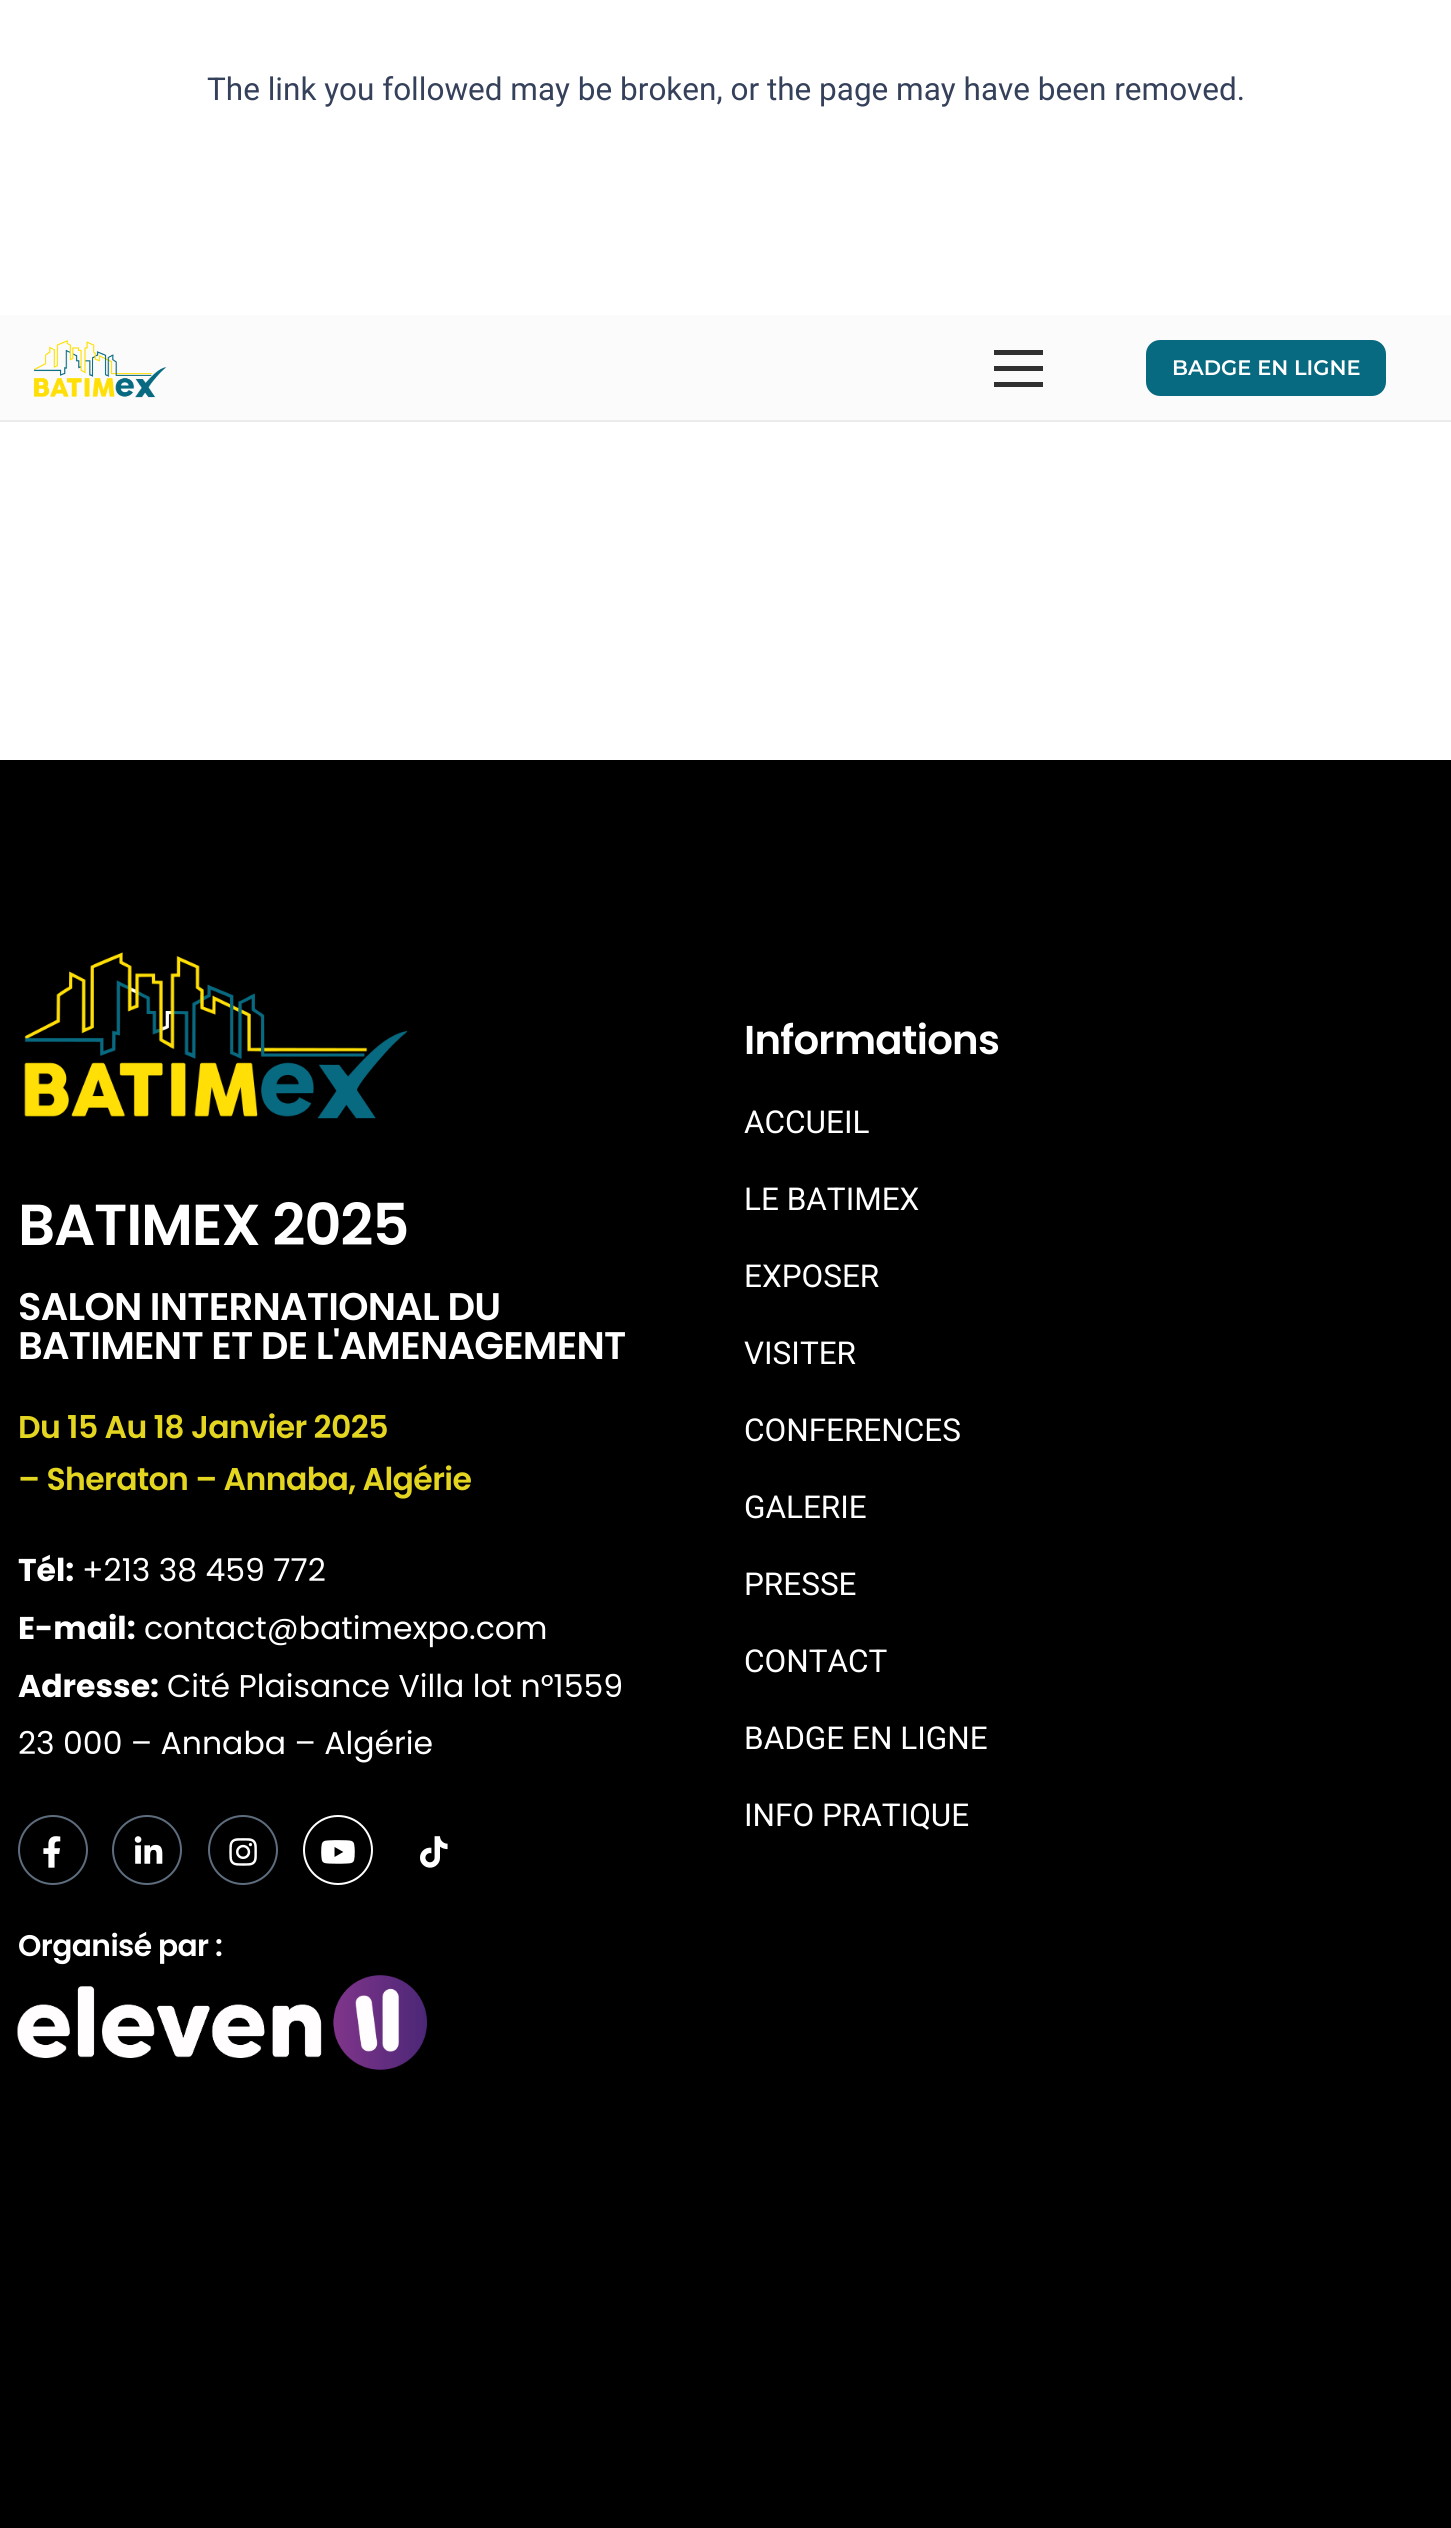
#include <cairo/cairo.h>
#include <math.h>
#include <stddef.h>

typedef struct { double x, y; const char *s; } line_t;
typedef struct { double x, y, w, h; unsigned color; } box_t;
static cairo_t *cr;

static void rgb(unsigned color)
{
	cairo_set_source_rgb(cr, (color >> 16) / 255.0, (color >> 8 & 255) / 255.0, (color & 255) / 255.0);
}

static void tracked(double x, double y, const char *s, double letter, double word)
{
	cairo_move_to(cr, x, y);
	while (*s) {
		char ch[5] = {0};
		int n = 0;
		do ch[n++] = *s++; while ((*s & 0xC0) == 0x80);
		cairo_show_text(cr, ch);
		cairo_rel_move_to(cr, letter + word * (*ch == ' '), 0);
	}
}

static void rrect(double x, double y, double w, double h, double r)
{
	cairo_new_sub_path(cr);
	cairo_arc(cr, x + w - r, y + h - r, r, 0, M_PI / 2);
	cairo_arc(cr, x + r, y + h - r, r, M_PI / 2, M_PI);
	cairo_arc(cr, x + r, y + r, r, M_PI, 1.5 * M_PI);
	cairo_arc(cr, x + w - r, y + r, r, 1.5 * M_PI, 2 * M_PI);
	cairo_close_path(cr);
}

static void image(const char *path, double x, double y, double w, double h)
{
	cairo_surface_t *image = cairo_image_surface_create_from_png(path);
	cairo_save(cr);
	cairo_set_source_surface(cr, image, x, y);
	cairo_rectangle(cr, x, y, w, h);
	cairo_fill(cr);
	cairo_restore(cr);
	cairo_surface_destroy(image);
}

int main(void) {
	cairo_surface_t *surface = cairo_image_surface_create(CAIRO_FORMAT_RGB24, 1451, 2528);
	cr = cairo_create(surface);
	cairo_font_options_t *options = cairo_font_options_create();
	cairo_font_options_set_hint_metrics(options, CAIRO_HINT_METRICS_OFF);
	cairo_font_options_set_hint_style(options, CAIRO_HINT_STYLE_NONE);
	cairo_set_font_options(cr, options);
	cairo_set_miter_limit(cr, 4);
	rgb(0xffffff);
	cairo_paint(cr);
	rgb(0xebebeb);
	cairo_new_path(cr);
	cairo_move_to(cr, 0, 420);
	cairo_line_to(cr, 0, 422);
	cairo_line_to(cr, 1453, 422);
	cairo_line_to(cr, 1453, 317);
	cairo_line_to(cr, 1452, 317);
	cairo_line_to(cr, 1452, 420);
	cairo_close_path(cr);
	cairo_fill(cr);
	rgb(0xfbfbfb);
	cairo_rectangle(cr, 0, 315, 1451, 105);
	cairo_fill(cr);
	image("img/1.png", 33, 340, 134, 58);
	{
		static const box_t items[] = {
			{994, 366, 49, 5, 0x303030},
			{994, 350, 49, 5, 0x303030},
			{994, 382, 49, 5, 0x303030},
		};
		for (size_t i = 0; i < sizeof items / sizeof *items; i++) {
			rgb(items[i].color);
			cairo_rectangle(cr, items[i].x, items[i].y, items[i].w, items[i].h);
			cairo_fill(cr);
		}
	}
	rgb(0x086a81);
	rrect(1146, 340, 240, 56, 14);
	cairo_fill(cr);
	rgb(0x000000);
	cairo_rectangle(cr, 0, 760, 1451, 1768);
	cairo_fill(cr);
	image("img/2.png", 24, 952, 384, 167);
	cairo_arc(cr, 53, 1850, 34, 0, 2 * M_PI);
	rgb(0x5e6d7e);
	cairo_stroke(cr);
	image("img/3.png", 43, 1836, 18, 32);
	cairo_arc(cr, 147, 1850, 34, 0, 2 * M_PI);
	cairo_stroke(cr);
	image("img/4.png", 134, 1836, 29, 28);
	cairo_arc(cr, 243, 1850, 34, 0, 2 * M_PI);
	cairo_stroke(cr);
	image("img/5.png", 229, 1838, 28, 28);
	cairo_arc(cr, 338, 1850, 34, 0, 2 * M_PI);
	rgb(0xffffff);
	cairo_stroke(cr);
	image("img/6.png", 321, 1840, 34, 24);
	image("img/7.png", 420, 1836, 28, 32);
	image("img/8.png", 17, 1975, 410, 95);
	cairo_select_font_face(cr, "Roboto", CAIRO_FONT_SLANT_NORMAL, CAIRO_FONT_WEIGHT_NORMAL);
	cairo_set_font_size(cr, 31.5);
	rgb(0x35415b);
	cairo_move_to(cr, 207, 100);
	cairo_show_text(cr, "The link you followed may be broken, or the page may have been removed.");
	cairo_select_font_face(cr, "Montserrat Thin", CAIRO_FONT_SLANT_NORMAL, CAIRO_FONT_WEIGHT_NORMAL);
	cairo_set_font_size(cr, 21);
	rgb(0xffffff);
	cairo_move_to(cr, 1172, 375);
	cairo_show_text(cr, "BADGE EN LIGNE");
	cairo_select_font_face(cr, "Poppins SemiBold", CAIRO_FONT_SLANT_NORMAL, CAIRO_FONT_WEIGHT_NORMAL);
	cairo_set_font_size(cr, 57.75);
	tracked(18, 1245, "BATIMEX 2025", -1.2, 0);
	cairo_set_font_size(cr, 38.5);
	tracked(18, 1320, "SALON INTERNATIONAL DU", -0.75, 0);
	tracked(18, 1359, "BATIMENT ET DE L'AMENAGEMENT", -0.75, 0);
	cairo_set_font_size(cr, 31.5);
	rgb(0xe4d620);
	tracked(18, 1438, "Du 15 Au 18 Janvier 2025", -0.6, 0);
	tracked(18, 1490, "– Sheraton – Annaba, Algérie", -0.6, 0);
	cairo_select_font_face(cr, "Poppins", CAIRO_FONT_SLANT_NORMAL, CAIRO_FONT_WEIGHT_BOLD);
	rgb(0xffffff);
	cairo_move_to(cr, 18, 1581);
	cairo_show_text(cr, "Tél:");
	cairo_select_font_face(cr, "Poppins", CAIRO_FONT_SLANT_NORMAL, CAIRO_FONT_WEIGHT_NORMAL);
	cairo_move_to(cr, 82, 1581);
	cairo_show_text(cr, "+213 38 459 772");
	cairo_select_font_face(cr, "Poppins", CAIRO_FONT_SLANT_NORMAL, CAIRO_FONT_WEIGHT_BOLD);
	cairo_move_to(cr, 18, 1639);
	cairo_show_text(cr, "E-mail:");
	cairo_select_font_face(cr, "Poppins", CAIRO_FONT_SLANT_NORMAL, CAIRO_FONT_WEIGHT_NORMAL);
	cairo_move_to(cr, 144, 1639);
	cairo_show_text(cr, "contact@batimexpo.com");
	cairo_select_font_face(cr, "Poppins", CAIRO_FONT_SLANT_NORMAL, CAIRO_FONT_WEIGHT_BOLD);
	cairo_move_to(cr, 18, 1697);
	cairo_show_text(cr, "Adresse:");
	cairo_select_font_face(cr, "Poppins", CAIRO_FONT_SLANT_NORMAL, CAIRO_FONT_WEIGHT_NORMAL);
	cairo_move_to(cr, 167, 1697);
	cairo_show_text(cr, "Cité Plaisance Villa lot n°1559");
	cairo_move_to(cr, 18, 1754);
	cairo_show_text(cr, "23 000 – Annaba – Algérie");
	cairo_select_font_face(cr, "Poppins SemiBold", CAIRO_FONT_SLANT_NORMAL, CAIRO_FONT_WEIGHT_NORMAL);
	cairo_set_font_size(cr, 29.75);
	tracked(18, 1956, "Organisé par :", -0.6, 0);
	cairo_set_font_size(cr, 40.25);
	tracked(744, 1054, "Informations", -0.75, 0);
	cairo_select_font_face(cr, "Roboto", CAIRO_FONT_SLANT_NORMAL, CAIRO_FONT_WEIGHT_NORMAL);
	cairo_set_font_size(cr, 31.5);
	{
		static const line_t items[] = {
			{744, 1133, "ACCUEIL"},
			{744, 1210, "LE BATIMEX"},
			{744, 1287, "EXPOSER"},
			{744, 1364, "VISITER"},
			{744, 1441, "CONFERENCES"},
			{744, 1518, "GALERIE"},
			{744, 1595, "PRESSE"},
			{744, 1672, "CONTACT"},
			{744, 1749, "BADGE EN LIGNE"},
			{744, 1826, "INFO PRATIQUE"},
		};
		for (size_t i = 0; i < sizeof items / sizeof *items; i++) {
			cairo_move_to(cr, items[i].x, items[i].y);
			cairo_show_text(cr, items[i].s);
		}
	}
	cairo_surface_write_to_png(surface, "page.png");
	cairo_font_options_destroy(options);
	cairo_destroy(cr);
	cairo_surface_destroy(surface);
	return 0;
}
